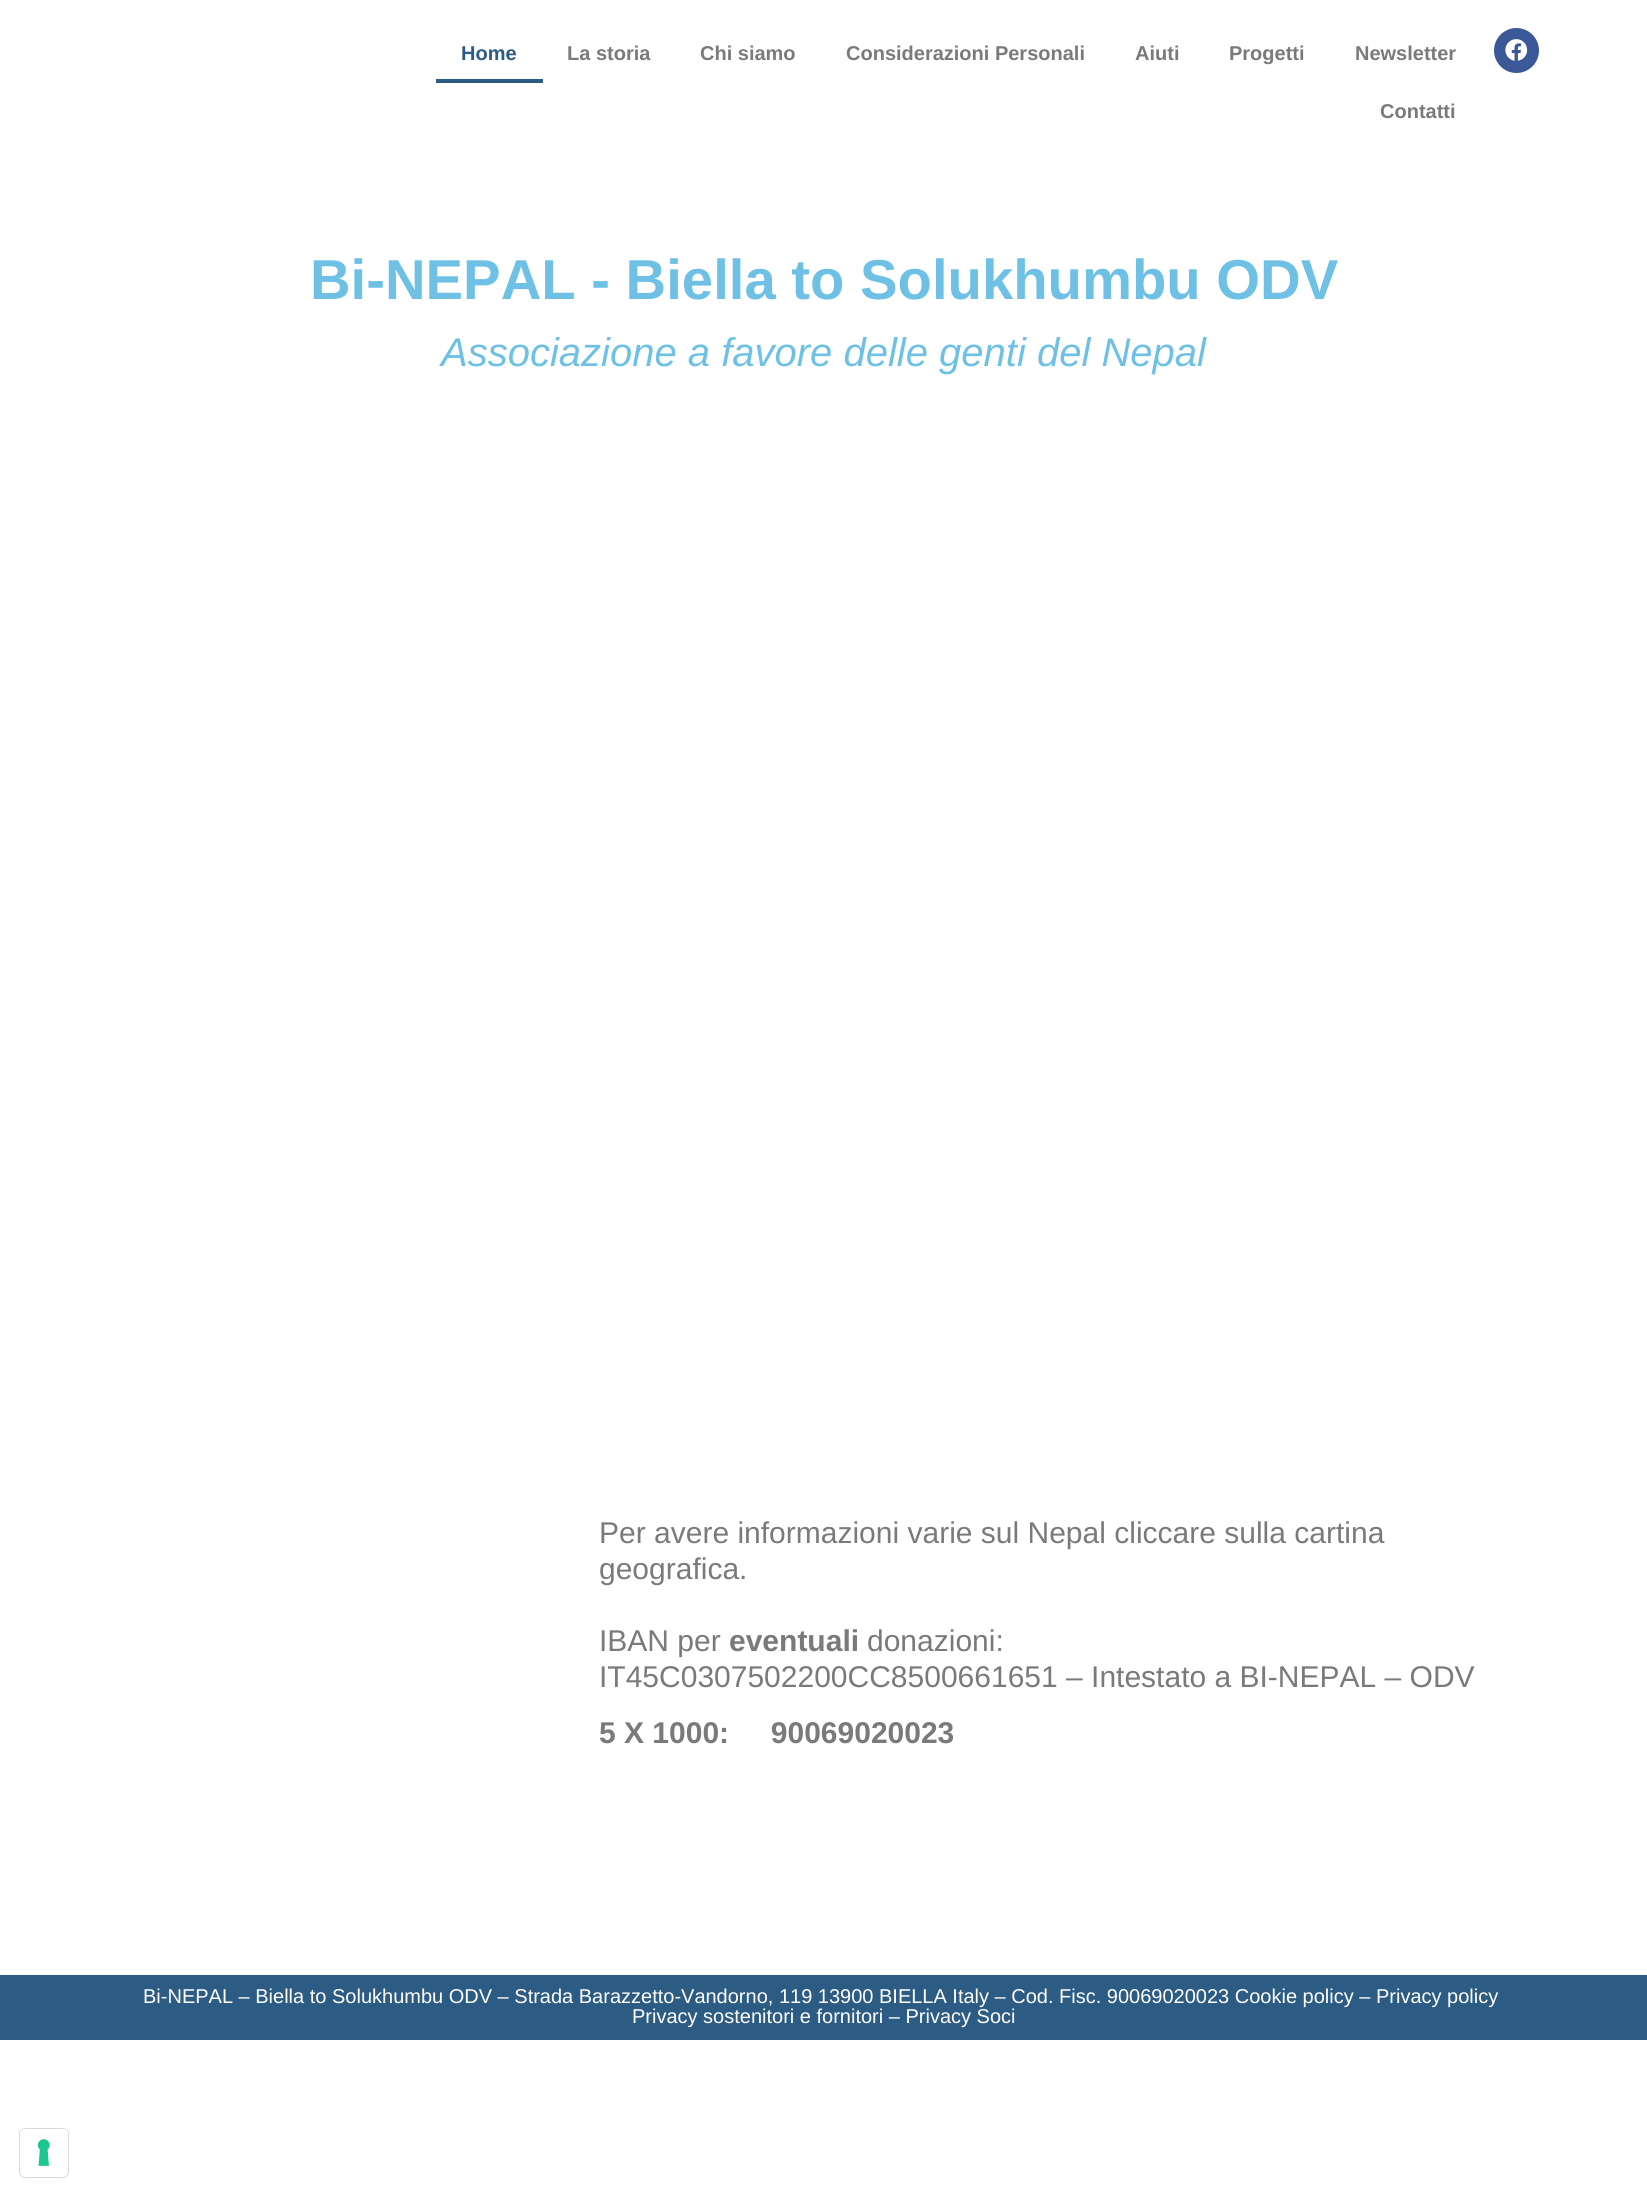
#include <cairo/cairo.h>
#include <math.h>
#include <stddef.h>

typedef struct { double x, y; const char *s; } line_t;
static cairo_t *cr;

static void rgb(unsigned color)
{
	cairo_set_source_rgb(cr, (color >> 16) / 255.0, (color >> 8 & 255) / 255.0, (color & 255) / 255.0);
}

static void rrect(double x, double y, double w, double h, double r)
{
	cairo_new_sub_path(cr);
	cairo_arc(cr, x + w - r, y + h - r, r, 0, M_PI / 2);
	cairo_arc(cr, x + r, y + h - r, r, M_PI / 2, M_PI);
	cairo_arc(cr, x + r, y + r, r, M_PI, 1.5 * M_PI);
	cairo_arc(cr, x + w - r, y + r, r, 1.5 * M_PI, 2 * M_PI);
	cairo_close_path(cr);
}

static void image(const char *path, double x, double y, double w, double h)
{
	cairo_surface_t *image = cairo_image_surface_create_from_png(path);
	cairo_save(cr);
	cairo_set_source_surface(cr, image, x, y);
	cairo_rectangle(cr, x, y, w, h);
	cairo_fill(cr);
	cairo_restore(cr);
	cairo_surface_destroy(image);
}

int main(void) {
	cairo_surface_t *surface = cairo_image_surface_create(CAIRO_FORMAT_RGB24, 1647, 2196);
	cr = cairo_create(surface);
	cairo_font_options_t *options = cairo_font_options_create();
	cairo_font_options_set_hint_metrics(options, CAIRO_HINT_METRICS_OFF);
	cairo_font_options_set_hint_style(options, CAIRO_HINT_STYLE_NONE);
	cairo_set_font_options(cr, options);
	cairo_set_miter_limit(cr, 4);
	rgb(0xffffff);
	cairo_paint(cr);
	rgb(0x2c5b83);
	cairo_rectangle(cr, 436, 79, 107, 4);
	cairo_fill(cr);
	rgb(0x3b5998);
	cairo_arc(cr, 1516.5, 50.5, 22.5, 0, 2 * M_PI);
	cairo_fill(cr);
	image("img/1.png", 1505, 39, 23, 22);
	rgb(0x2c5b83);
	cairo_rectangle(cr, 0, 1975, 1647, 65);
	cairo_fill(cr);
	rrect(19.5, 2128.5, 49, 49, 5.5);
	rgb(0xd9d9d9);
	cairo_set_line_width(cr, 1);
	cairo_stroke(cr);
	rgb(0xffffff);
	rrect(20, 2129, 48, 47, 5);
	cairo_fill(cr);
	image("img/2.png", 37, 2139, 13, 27);
	cairo_select_font_face(cr, "Liberation Sans", CAIRO_FONT_SLANT_NORMAL, CAIRO_FONT_WEIGHT_BOLD);
	cairo_set_font_size(cr, 20);
	rgb(0x2c5b83);
	cairo_move_to(cr, 461, 60);
	cairo_show_text(cr, "Home");
	rgb(0x7a7a7a);
	{
		static const line_t items[] = {
			{567, 60, "La storia"},
			{700, 60, "Chi siamo"},
			{846, 60, "Considerazioni Personali"},
			{1135, 60, "Aiuti"},
			{1229, 60, "Progetti"},
			{1355, 60, "Newsletter"},
			{1380, 118, "Contatti"},
		};
		for (size_t i = 0; i < sizeof items / sizeof *items; i++) {
			cairo_move_to(cr, items[i].x, items[i].y);
			cairo_show_text(cr, items[i].s);
		}
	}
	cairo_set_font_size(cr, 56.25);
	rgb(0x6ec1e4);
	cairo_move_to(cr, 310, 299);
	cairo_show_text(cr, "Bi-NEPAL - Biella to Solukhumbu ODV");
	cairo_select_font_face(cr, "Liberation Sans", CAIRO_FONT_SLANT_ITALIC, CAIRO_FONT_WEIGHT_NORMAL);
	cairo_set_font_size(cr, 40);
	cairo_move_to(cr, 441, 366);
	cairo_show_text(cr, "Associazione a favore delle genti del Nepal");
	cairo_select_font_face(cr, "Liberation Sans", CAIRO_FONT_SLANT_NORMAL, CAIRO_FONT_WEIGHT_NORMAL);
	cairo_set_font_size(cr, 30);
	rgb(0x7a7a7a);
	{
		static const line_t items[] = {
			{599, 1543, "Per avere informazioni varie sul Nepal cliccare sulla cartina"},
			{599, 1579, "geografica."},
			{599, 1651, "IBAN per"},
		};
		for (size_t i = 0; i < sizeof items / sizeof *items; i++) {
			cairo_move_to(cr, items[i].x, items[i].y);
			cairo_show_text(cr, items[i].s);
		}
	}
	cairo_select_font_face(cr, "Liberation Sans", CAIRO_FONT_SLANT_NORMAL, CAIRO_FONT_WEIGHT_BOLD);
	cairo_move_to(cr, 729, 1651);
	cairo_show_text(cr, "eventuali");
	cairo_select_font_face(cr, "Liberation Sans", CAIRO_FONT_SLANT_NORMAL, CAIRO_FONT_WEIGHT_NORMAL);
	cairo_move_to(cr, 867, 1651);
	cairo_show_text(cr, "donazioni:");
	cairo_move_to(cr, 599, 1687);
	cairo_show_text(cr, "IT45C0307502200CC8500661651 – Intestato a BI-NEPAL – ODV");
	cairo_select_font_face(cr, "Liberation Sans", CAIRO_FONT_SLANT_NORMAL, CAIRO_FONT_WEIGHT_BOLD);
	cairo_move_to(cr, 599, 1743);
	cairo_show_text(cr, "5 X 1000:     90069020023");
	cairo_select_font_face(cr, "Liberation Sans", CAIRO_FONT_SLANT_NORMAL, CAIRO_FONT_WEIGHT_NORMAL);
	cairo_set_font_size(cr, 20);
	rgb(0xffffff);
	cairo_move_to(cr, 143, 2003);
	cairo_show_text(cr, "Bi-NEPAL – Biella to Solukhumbu ODV – Strada Barazzetto-Vandorno, 119 13900 BIELLA Italy – Cod. Fisc. 90069020023 Cookie policy – Privacy policy");
	cairo_move_to(cr, 632, 2023);
	cairo_show_text(cr, "Privacy sostenitori e fornitori – Privacy Soci");
	cairo_surface_write_to_png(surface, "page.png");
	cairo_font_options_destroy(options);
	cairo_destroy(cr);
	cairo_surface_destroy(surface);
	return 0;
}
